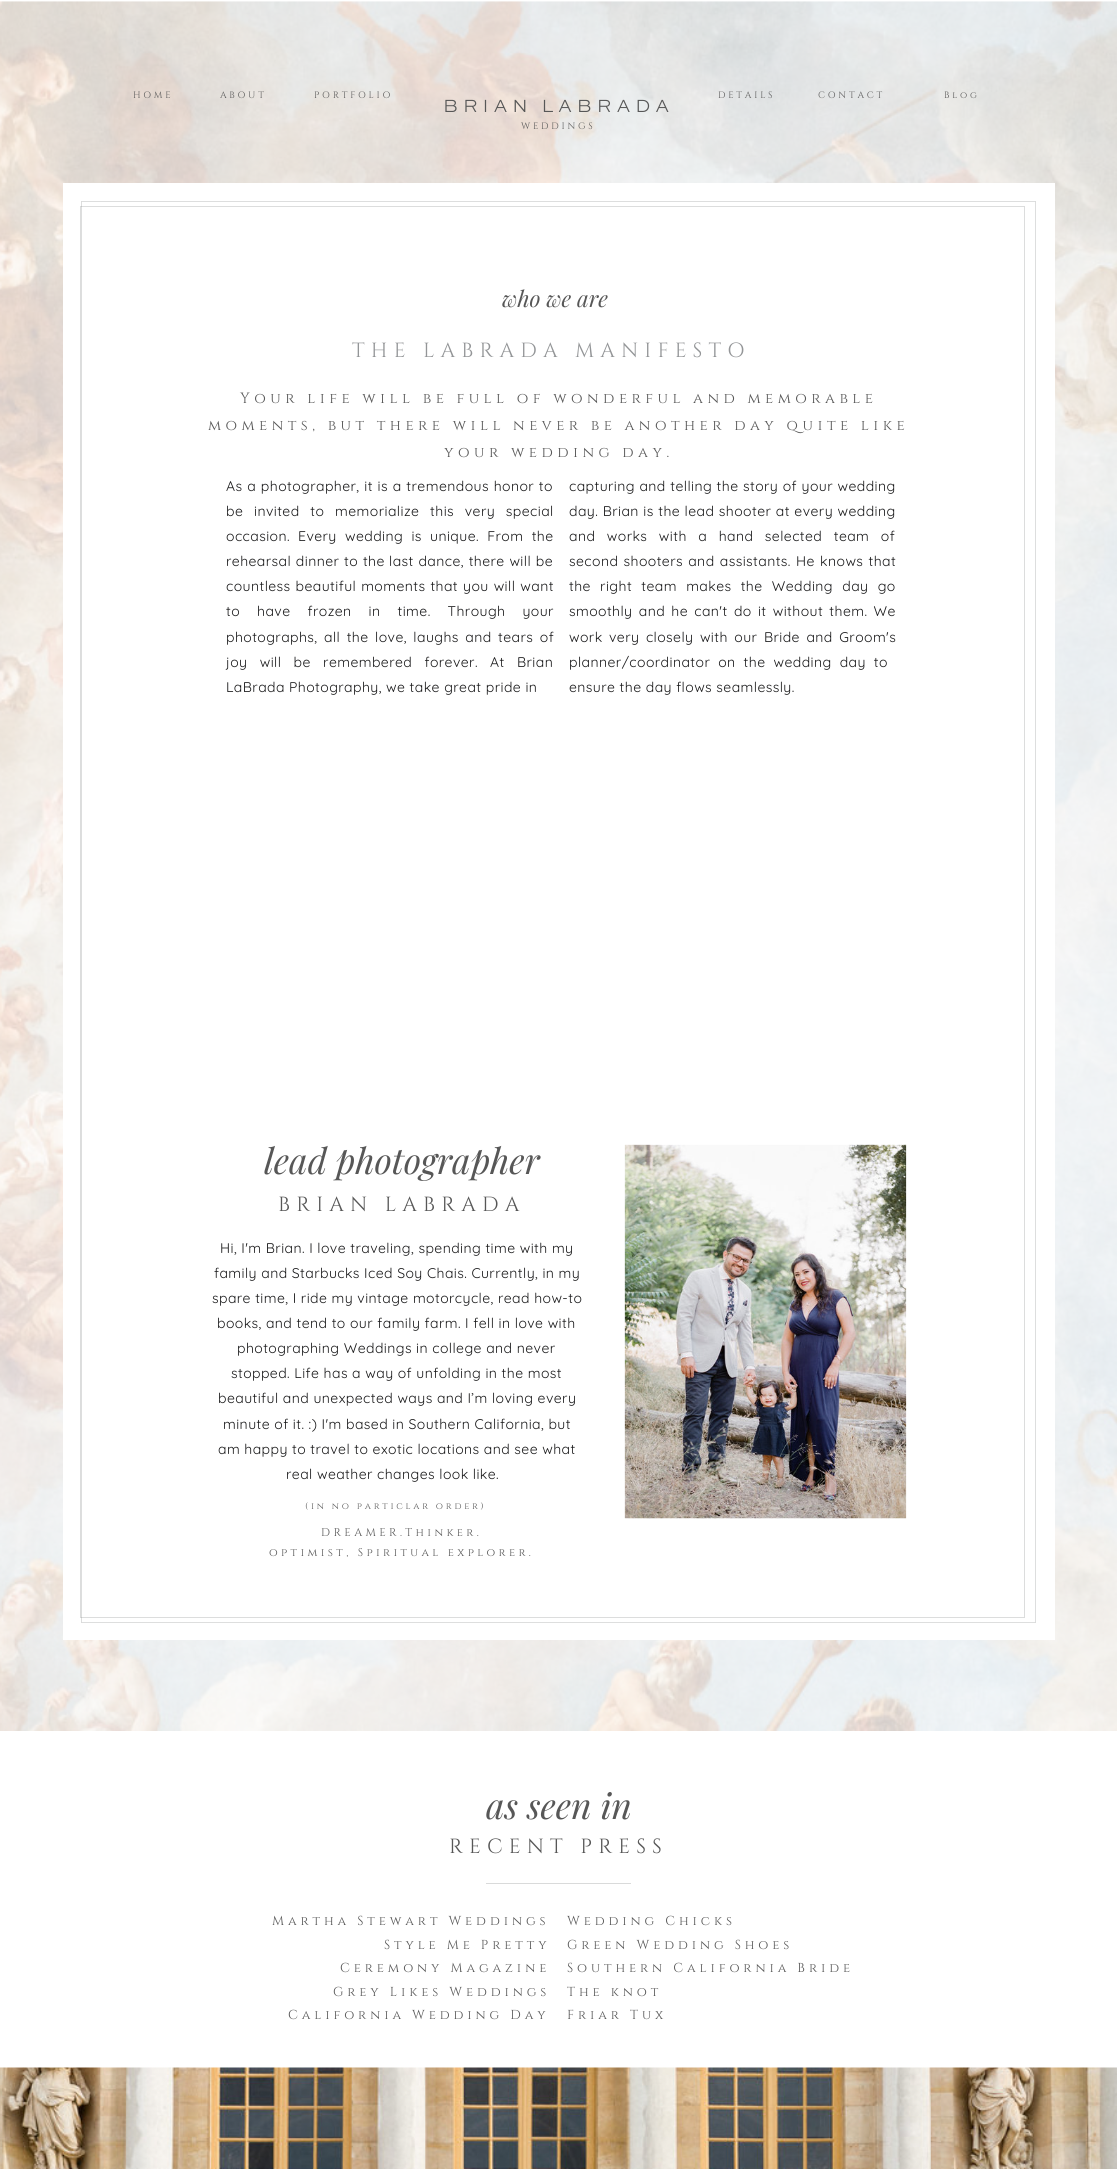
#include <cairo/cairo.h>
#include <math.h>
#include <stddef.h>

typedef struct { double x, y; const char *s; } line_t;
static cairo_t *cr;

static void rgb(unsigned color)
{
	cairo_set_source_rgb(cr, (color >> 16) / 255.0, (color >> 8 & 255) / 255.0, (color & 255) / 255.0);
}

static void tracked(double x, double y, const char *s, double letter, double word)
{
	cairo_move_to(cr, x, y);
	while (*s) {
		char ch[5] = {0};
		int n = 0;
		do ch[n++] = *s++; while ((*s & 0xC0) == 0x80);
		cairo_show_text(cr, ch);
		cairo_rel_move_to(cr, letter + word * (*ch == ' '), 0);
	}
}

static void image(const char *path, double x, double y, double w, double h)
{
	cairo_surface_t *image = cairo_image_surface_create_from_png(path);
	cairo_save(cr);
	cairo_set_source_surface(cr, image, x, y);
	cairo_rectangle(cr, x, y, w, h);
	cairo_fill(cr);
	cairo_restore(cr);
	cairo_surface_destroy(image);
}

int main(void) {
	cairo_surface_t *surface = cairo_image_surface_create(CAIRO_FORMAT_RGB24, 1117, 2169);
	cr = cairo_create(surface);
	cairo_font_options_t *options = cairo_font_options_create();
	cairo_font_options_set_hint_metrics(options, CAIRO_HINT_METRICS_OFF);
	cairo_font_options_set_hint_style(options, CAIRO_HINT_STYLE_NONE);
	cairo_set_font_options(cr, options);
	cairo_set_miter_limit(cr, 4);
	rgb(0xffffff);
	cairo_paint(cr);
	image("img/1.png", 0, 1, 1117, 1730);
	rgb(0xffffff);
	cairo_rectangle(cr, 63, 183, 992, 1457);
	cairo_fill(cr);
	cairo_rectangle(cr, 81.45, 201.45, 954.1, 1421.1);
	rgb(0xd9dada);
	cairo_set_line_width(cr, 0.9);
	cairo_stroke(cr);
	cairo_rectangle(cr, 80.45, 206.45, 944.1, 1411.1);
	cairo_set_source_rgba(cr, 0.502, 0.51, 0.518, 0.3);
	cairo_stroke(cr);
	image("img/2.png", 624, 1144, 283, 375);
	rgb(0xd9dada);
	cairo_rectangle(cr, 486, 1883, 145, 1);
	cairo_fill(cr);
	image("img/3.png", 0, 2067, 1117, 102);
	cairo_select_font_face(cr, "Cinzel", CAIRO_FONT_SLANT_NORMAL, CAIRO_FONT_WEIGHT_NORMAL);
	cairo_set_font_size(cr, 9.3);
	rgb(0x575757);
	{
		static const line_t items[] = {
			{133, 98, "HOME"},
			{220, 98, "ABOUT"},
			{314, 98, "PORTFOLIO"},
			{718, 98, "DETAILS"},
			{818, 98, "CONTACT"},
			{944, 98, "Blog"},
		};
		for (size_t i = 0; i < sizeof items / sizeof *items; i++) {
			tracked(items[i].x, items[i].y, items[i].s, 2.75, 0);
		}
	}
	cairo_select_font_face(cr, "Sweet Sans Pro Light", CAIRO_FONT_SLANT_NORMAL, CAIRO_FONT_WEIGHT_NORMAL);
	cairo_set_font_size(cr, 18.6);
	tracked(443, 112, "BRIAN LABRADA", 4.8, 0);
	cairo_select_font_face(cr, "Cinzel", CAIRO_FONT_SLANT_NORMAL, CAIRO_FONT_WEIGHT_NORMAL);
	cairo_set_font_size(cr, 9.3);
	tracked(521, 129, "WEDDINGS", 2.75, 0);
	cairo_select_font_face(cr, "Playfair Display", CAIRO_FONT_SLANT_ITALIC, CAIRO_FONT_WEIGHT_NORMAL);
	cairo_set_font_size(cr, 22.5);
	cairo_move_to(cr, 502, 307);
	cairo_show_text(cr, "who we are");
	cairo_select_font_face(cr, "Cinzel", CAIRO_FONT_SLANT_NORMAL, CAIRO_FONT_WEIGHT_NORMAL);
	cairo_set_font_size(cr, 20.5);
	rgb(0x939597);
	tracked(352, 357, "THE LABRADA MANIFESTO", 6.15, 0);
	cairo_set_font_size(cr, 14.9);
	rgb(0x575757);
	{
		static const line_t items[] = {
			{240, 403, "Your life will be full of wonderful and memorable"},
			{208, 430, "moments, but there will never be another day quite like"},
			{444, 457, "your wedding day."},
		};
		for (size_t i = 0; i < sizeof items / sizeof *items; i++) {
			tracked(items[i].x, items[i].y, items[i].s, 4.47, 0);
		}
	}
	cairo_select_font_face(cr, "Quicksand Light", CAIRO_FONT_SLANT_NORMAL, CAIRO_FONT_WEIGHT_NORMAL);
	cairo_set_font_size(cr, 14);
	rgb(0x19191a);
	tracked(226, 491, "As a photographer, it is a tremendous honor to", 0.42, 0.5);
	tracked(226, 516, "be invited to memorialize this very special", 0.42, 6.5);
	tracked(226, 541, "occasion.", 0.42, 0);
	tracked(298, 541, "Every wedding is unique. From the", 0.42, 4);
	tracked(226, 566, "rehearsal dinner to the", 0.42, 0.5);
	tracked(389, 566, "last dance, there will be", 0.42, 0.5);
	tracked(226, 591, "countless beautiful moments that you will want", 0.42, 0.75);
	tracked(226, 616, "to have frozen in time. Through your", 0.42, 12.75);
	tracked(226, 642, "photographs,", 0.42, 0);
	tracked(324, 642, "all the love, laughs and tears of", 0.42, 2.25);
	tracked(226, 667, "joy will be remembered forever. At Brian", 0.42, 8);
	tracked(226, 692, "LaBrada Photography, we take great pride in", 0.42, 0);
	tracked(569, 491, "capturing and telling the story of your wedding", 0.42, 0.25);
	tracked(569, 516, "day. Brian is the lead shooter at every wedding", 0.42, 0.25);
	tracked(569, 541, "and works with a hand selected team of", 0.42, 7.25);
	tracked(569, 566, "second shooters and assistants. He knows that", 0.42, 1);
	tracked(569, 591, "the right team makes the Wedding day go", 0.42, 5);
	tracked(569, 616, "smoothly and he can't do it without them. We", 0.42, 2);
	tracked(569, 642, "work very closely with our Bride and Groom's", 0.42, 2.25);
	tracked(569, 667, "planner/coordinator on the wedding day to", 0.42, 3.75);
	tracked(569, 692, "ensure the day flows seamlessly.", 0.42, 0);
	cairo_select_font_face(cr, "Playfair Display", CAIRO_FONT_SLANT_ITALIC, CAIRO_FONT_WEIGHT_NORMAL);
	cairo_set_font_size(cr, 35.5);
	rgb(0x575757);
	cairo_move_to(cr, 264, 1174);
	cairo_show_text(cr, "lead photographer");
	cairo_select_font_face(cr, "Cinzel", CAIRO_FONT_SLANT_NORMAL, CAIRO_FONT_WEIGHT_NORMAL);
	cairo_set_font_size(cr, 20.5);
	tracked(278, 1211, "BRIAN LABRADA", 6.15, 0);
	cairo_select_font_face(cr, "Quicksand Light", CAIRO_FONT_SLANT_NORMAL, CAIRO_FONT_WEIGHT_NORMAL);
	cairo_set_font_size(cr, 14);
	rgb(0x19191a);
	{
		static const line_t items[] = {
			{220, 1253, "Hi, I'm Brian. I love traveling, spending time with my"},
			{214, 1278, "family and Starbucks Iced Soy Chais. Currently, in my"},
			{212, 1303, "spare time, I ride my vintage motorcycle, read how-to"},
			{217, 1328, "books, and tend to our family farm. I fell in love with"},
			{237, 1353, "photographing Weddings in college and never"},
			{231, 1378, "stopped. Life has a way of unfolding in the most"},
			{218, 1403, "beautiful and unexpected ways and I’m loving every"},
			{223, 1429, "minute of it. :) I'm based in Southern California, but"},
			{218, 1454, "am happy to travel to exotic locations and see what"},
			{286, 1479, "real weather changes look like."},
		};
		for (size_t i = 0; i < sizeof items / sizeof *items; i++) {
			tracked(items[i].x, items[i].y, items[i].s, 0.42, 0);
		}
	}
	cairo_select_font_face(cr, "Cinzel", CAIRO_FONT_SLANT_NORMAL, CAIRO_FONT_WEIGHT_NORMAL);
	cairo_set_font_size(cr, 9.3);
	rgb(0x575757);
	tracked(305, 1509, "(in no particlar order)", 2.75, 0);
	cairo_set_font_size(cr, 11.2);
	tracked(321, 1536, "DREAMER.Thinker.", 3.35, 0);
	tracked(269, 1556, "optimist, Spiritual explorer.", 3.35, 0);
	cairo_select_font_face(cr, "Playfair Display", CAIRO_FONT_SLANT_ITALIC, CAIRO_FONT_WEIGHT_NORMAL);
	cairo_set_font_size(cr, 35.5);
	cairo_move_to(cr, 486, 1819);
	cairo_show_text(cr, "as seen in");
	cairo_select_font_face(cr, "Cinzel", CAIRO_FONT_SLANT_NORMAL, CAIRO_FONT_WEIGHT_NORMAL);
	cairo_set_font_size(cr, 20.5);
	tracked(449, 1853, "RECENT PRESS", 6.15, 0);
	cairo_set_font_size(cr, 13);
	{
		static const line_t items[] = {
			{272, 1925, "Martha Stewart Weddings"},
			{384, 1949, "Style Me Pretty"},
			{340, 1972, "Ceremony Magazine"},
			{333, 1996, "Grey Likes Weddings"},
			{288, 2019, "California Wedding Day"},
			{567, 1925, "Wedding Chicks"},
			{567, 1949, "Green Wedding Shoes"},
			{567, 1972, "Southern California Bride"},
			{567, 1996, "The knot"},
			{567, 2019, "Friar Tux"},
		};
		for (size_t i = 0; i < sizeof items / sizeof *items; i++) {
			tracked(items[i].x, items[i].y, items[i].s, 3.9, 0);
		}
	}
	cairo_surface_write_to_png(surface, "page.png");
	cairo_font_options_destroy(options);
	cairo_destroy(cr);
	cairo_surface_destroy(surface);
	return 0;
}
